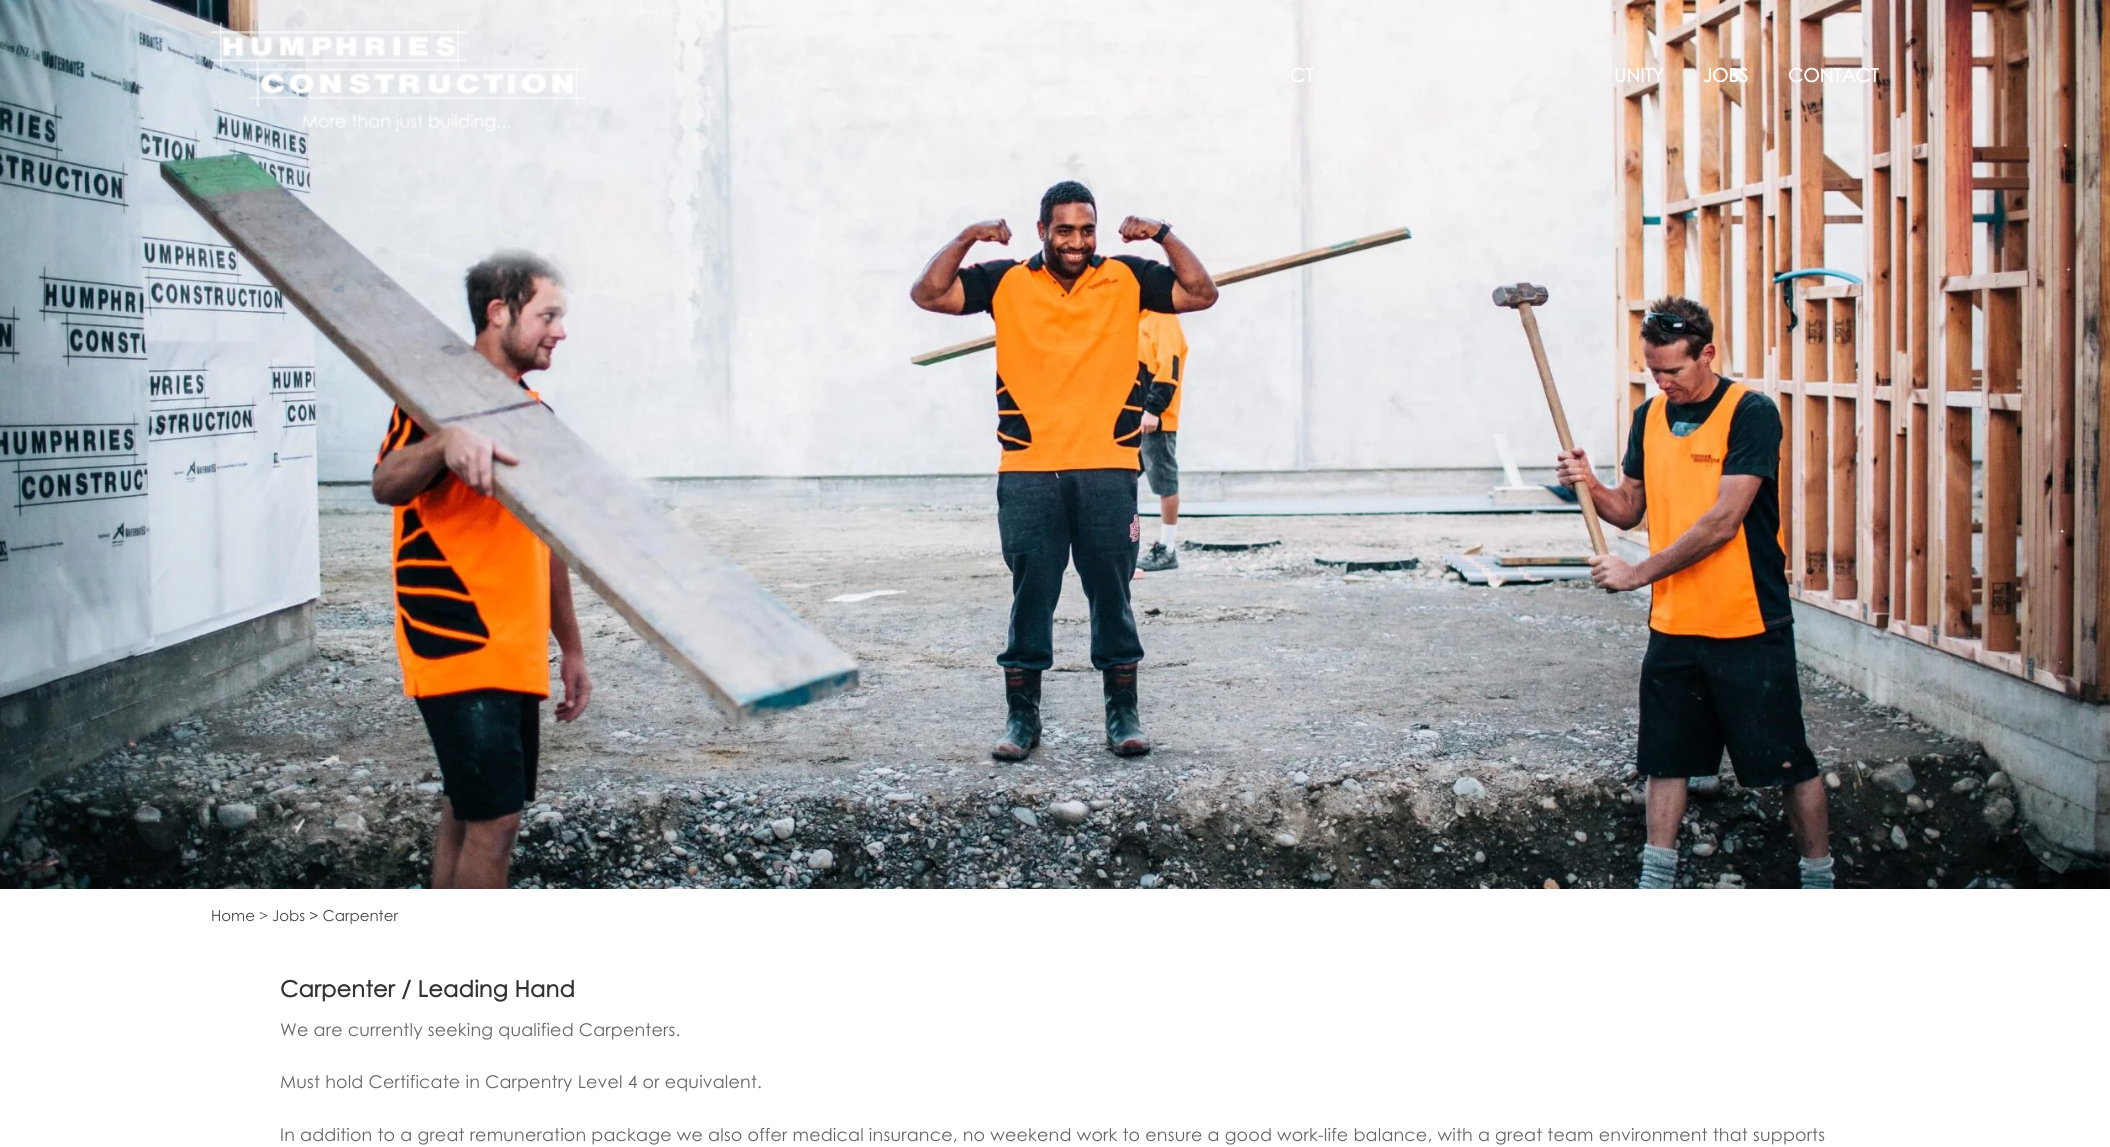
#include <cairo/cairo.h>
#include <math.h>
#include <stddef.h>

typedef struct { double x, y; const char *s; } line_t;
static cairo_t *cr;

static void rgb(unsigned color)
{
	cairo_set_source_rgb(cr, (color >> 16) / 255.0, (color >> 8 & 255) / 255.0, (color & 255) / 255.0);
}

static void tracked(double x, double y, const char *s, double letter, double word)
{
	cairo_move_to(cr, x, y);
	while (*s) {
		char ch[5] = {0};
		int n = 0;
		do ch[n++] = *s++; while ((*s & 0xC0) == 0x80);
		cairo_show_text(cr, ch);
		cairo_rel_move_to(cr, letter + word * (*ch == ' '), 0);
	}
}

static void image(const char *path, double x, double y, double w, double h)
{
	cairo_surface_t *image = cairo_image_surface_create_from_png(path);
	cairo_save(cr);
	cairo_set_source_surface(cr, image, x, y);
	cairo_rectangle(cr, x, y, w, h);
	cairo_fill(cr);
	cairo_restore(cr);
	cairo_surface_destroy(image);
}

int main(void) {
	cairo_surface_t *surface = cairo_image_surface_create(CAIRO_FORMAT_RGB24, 2110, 1147);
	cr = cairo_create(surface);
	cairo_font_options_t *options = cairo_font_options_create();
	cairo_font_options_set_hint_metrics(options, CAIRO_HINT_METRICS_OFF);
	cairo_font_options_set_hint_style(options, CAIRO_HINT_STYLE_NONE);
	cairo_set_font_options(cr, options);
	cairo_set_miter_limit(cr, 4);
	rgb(0xffffff);
	cairo_paint(cr);
	image("img/2.png", 0, 0, 2110, 889);
	image("img/1.png", 211, 22, 375, 110);
	cairo_select_font_face(cr, "Century Gothic", CAIRO_FONT_SLANT_NORMAL, CAIRO_FONT_WEIGHT_BOLD);
	cairo_set_font_size(cr, 18.75);
	rgb(0xffffff);
	{
		static const line_t items[] = {
			{1290, 82, "CT"},
			{1614, 82, "UNITY"},
			{1703, 82, "JOBS"},
			{1788, 82, "CONTACT"},
		};
		for (size_t i = 0; i < sizeof items / sizeof *items; i++) {
			cairo_move_to(cr, items[i].x, items[i].y);
			cairo_show_text(cr, items[i].s);
		}
	}
	cairo_select_font_face(cr, "Century Gothic", CAIRO_FONT_SLANT_NORMAL, CAIRO_FONT_WEIGHT_NORMAL);
	cairo_set_font_size(cr, 15);
	rgb(0x444444);
	cairo_move_to(cr, 211, 921);
	cairo_show_text(cr, "Home");
	rgb(0x666666);
	cairo_move_to(cr, 259, 921);
	cairo_show_text(cr, ">");
	rgb(0x444444);
	cairo_move_to(cr, 272, 921);
	cairo_show_text(cr, "Jobs > Carpenter");
	cairo_select_font_face(cr, "Century Gothic", CAIRO_FONT_SLANT_NORMAL, CAIRO_FONT_WEIGHT_BOLD);
	cairo_set_font_size(cr, 22.5);
	rgb(0x333333);
	tracked(280, 997, "Carpenter / Leading Hand", 0.18, 0);
	cairo_select_font_face(cr, "Century Gothic", CAIRO_FONT_SLANT_NORMAL, CAIRO_FONT_WEIGHT_NORMAL);
	cairo_set_font_size(cr, 17.5);
	rgb(0x666666);
	{
		static const line_t items[] = {
			{280, 1036, "We are currently seeking qualified Carpenters."},
			{280, 1088, "Must hold Certificate in Carpentry Level 4 or equivalent."},
			{280, 1141, "In addition to a great remuneration package we also offer medical insurance, no weekend work to ensure a good work-life balance, with a great team environment that supports"},
		};
		for (size_t i = 0; i < sizeof items / sizeof *items; i++) {
			tracked(items[i].x, items[i].y, items[i].s, 0.18, 0);
		}
	}
	cairo_surface_write_to_png(surface, "page.png");
	cairo_font_options_destroy(options);
	cairo_destroy(cr);
	cairo_surface_destroy(surface);
	return 0;
}
